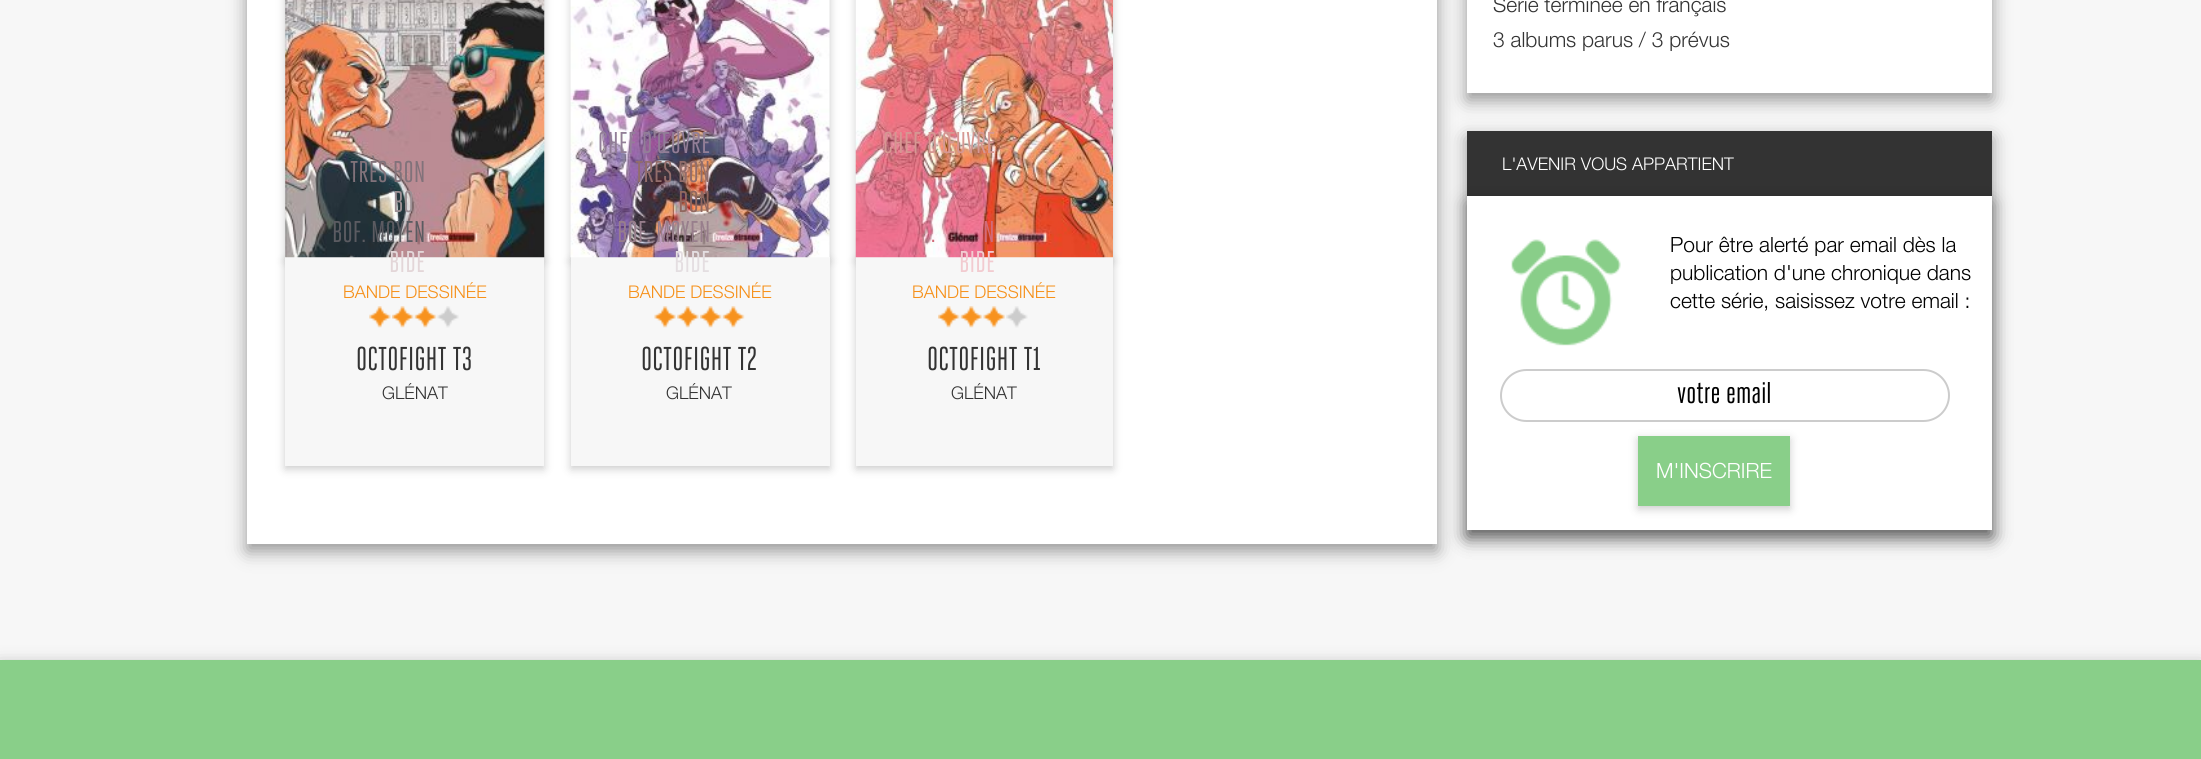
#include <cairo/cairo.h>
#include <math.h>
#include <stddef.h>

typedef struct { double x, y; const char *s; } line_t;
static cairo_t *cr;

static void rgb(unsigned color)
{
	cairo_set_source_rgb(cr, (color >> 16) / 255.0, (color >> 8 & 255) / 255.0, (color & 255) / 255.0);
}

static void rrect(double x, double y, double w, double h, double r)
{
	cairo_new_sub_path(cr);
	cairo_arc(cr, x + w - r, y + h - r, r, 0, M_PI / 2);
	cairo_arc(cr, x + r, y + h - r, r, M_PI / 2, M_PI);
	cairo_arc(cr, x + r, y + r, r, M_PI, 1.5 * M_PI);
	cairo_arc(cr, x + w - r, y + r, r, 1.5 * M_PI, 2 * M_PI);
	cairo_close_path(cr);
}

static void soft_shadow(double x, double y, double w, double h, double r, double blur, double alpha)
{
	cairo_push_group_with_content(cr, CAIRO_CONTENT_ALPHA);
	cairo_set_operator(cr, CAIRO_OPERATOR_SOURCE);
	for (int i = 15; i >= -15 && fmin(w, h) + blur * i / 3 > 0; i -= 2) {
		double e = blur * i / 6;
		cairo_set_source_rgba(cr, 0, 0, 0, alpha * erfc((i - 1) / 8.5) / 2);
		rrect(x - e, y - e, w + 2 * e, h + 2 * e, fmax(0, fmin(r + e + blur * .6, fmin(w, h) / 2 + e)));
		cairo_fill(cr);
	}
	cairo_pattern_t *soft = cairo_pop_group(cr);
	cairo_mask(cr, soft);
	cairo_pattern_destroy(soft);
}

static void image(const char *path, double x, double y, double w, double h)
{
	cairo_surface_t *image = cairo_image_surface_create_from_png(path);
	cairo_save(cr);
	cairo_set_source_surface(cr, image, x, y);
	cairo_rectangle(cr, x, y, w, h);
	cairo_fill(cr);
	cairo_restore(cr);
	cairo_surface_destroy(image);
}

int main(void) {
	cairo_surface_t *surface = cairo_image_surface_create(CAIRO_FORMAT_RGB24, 2201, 759);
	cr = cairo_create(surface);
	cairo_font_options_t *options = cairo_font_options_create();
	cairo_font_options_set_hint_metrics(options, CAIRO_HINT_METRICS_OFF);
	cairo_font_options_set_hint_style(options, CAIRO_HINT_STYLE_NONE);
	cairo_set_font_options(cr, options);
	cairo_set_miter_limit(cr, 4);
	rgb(0xf7f7f7);
	cairo_paint(cr);
	rgb(0x000000);
	soft_shadow(247, -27, 1190, 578, 0, 9, 0.4);
	rgb(0xffffff);
	cairo_rectangle(cr, 247, 0, 1190, 544);
	cairo_fill(cr);
	rgb(0x000000);
	soft_shadow(285, -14, 259, 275, 0, 4.5, 0.2);
	soft_shadow(285, 261, 259, 208, 0, 4.5, 0.2);
	rgb(0xf7f7f7);
	cairo_rectangle(cr, 285, 257, 259, 209);
	cairo_fill(cr);
	image("img/1.png", 285, 0, 260, 258);
	image("img/2.png", 369, 306, 22, 22);
	image("img/3.png", 392, 306, 22, 22);
	image("img/4.png", 414, 306, 23, 22);
	image("img/5.png", 437, 306, 22, 22);
	rgb(0x000000);
	soft_shadow(571, -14, 259, 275, 0, 4.5, 0.2);
	soft_shadow(571, 261, 259, 208, 0, 4.5, 0.2);
	rgb(0xf7f7f7);
	cairo_rectangle(cr, 571, 257, 259, 209);
	cairo_fill(cr);
	image("img/6.png", 570, 0, 260, 258);
	image("img/7.png", 654, 306, 22, 22);
	image("img/2.png", 677, 306, 22, 22);
	image("img/3.png", 700, 306, 22, 22);
	image("img/8.png", 722, 306, 23, 22);
	rgb(0x000000);
	soft_shadow(856, -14, 257, 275, 0, 4.5, 0.2);
	soft_shadow(856, 261, 257, 208, 0, 4.5, 0.2);
	rgb(0xf7f7f7);
	cairo_rectangle(cr, 856, 257, 257, 209);
	cairo_fill(cr);
	image("img/9.png", 855, 0, 258, 258);
	image("img/3.png", 938, 306, 22, 22);
	image("img/4.png", 960, 306, 23, 22);
	image("img/10.png", 983, 306, 22, 22);
	image("img/11.png", 1006, 306, 22, 22);
	rgb(0x000000);
	soft_shadow(1467, -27, 525, 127, 0, 9, 0.4);
	rgb(0xffffff);
	cairo_rectangle(cr, 1467, 0, 525, 93);
	cairo_fill(cr);
	rgb(0x000000);
	soft_shadow(1467, 138, 525, 399, 0, 9, 0.4);
	rgb(0x333333);
	cairo_rectangle(cr, 1467, 131, 525, 65);
	cairo_fill(cr);
	rgb(0x000000);
	soft_shadow(1467, 203, 525, 334, 0, 9, 0.4);
	rgb(0xffffff);
	cairo_rectangle(cr, 1467, 196, 525, 334);
	cairo_fill(cr);
	image("img/12.png", 1511, 239, 110, 107);
	rrect(1501, 370, 448, 51, 25.5);
	rgb(0xcccccc);
	cairo_stroke(cr);
	rgb(0x000000);
	soft_shadow(1638, 439, 152, 70, 0, 4.5, 0.2);
	rgb(0x89cf89);
	cairo_rectangle(cr, 1638, 436, 152, 70);
	cairo_fill(cr);
	rgb(0x000000);
	soft_shadow(0, 667, 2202, 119, 0, 9, 0.4);
	rgb(0x89cf89);
	cairo_rectangle(cr, 0, 660, 2201, 99);
	cairo_fill(cr);
	cairo_select_font_face(cr, "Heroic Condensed", CAIRO_FONT_SLANT_NORMAL, CAIRO_FONT_WEIGHT_NORMAL);
	cairo_set_font_size(cr, 30);
	rgb(0x81727a);
	cairo_move_to(cr, 350, 182);
	cairo_show_text(cr, "TRÈS BON");
	rgb(0x9c8f94);
	cairo_move_to(cr, 393, 212);
	cairo_show_text(cr, "BO");
	rgb(0x5b5b61);
	cairo_move_to(cr, 332, 242);
	cairo_show_text(cr, "BOF. MOYEN");
	rgb(0xe3d6d8);
	cairo_move_to(cr, 389, 272);
	cairo_show_text(cr, "BIDE");
	cairo_select_font_face(cr, "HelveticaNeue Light", CAIRO_FONT_SLANT_NORMAL, CAIRO_FONT_WEIGHT_NORMAL);
	cairo_set_font_size(cr, 17.5);
	rgb(0xf6911b);
	cairo_move_to(cr, 343, 298);
	cairo_show_text(cr, "BANDE DESSINÉE");
	cairo_select_font_face(cr, "Heroic Condensed", CAIRO_FONT_SLANT_NORMAL, CAIRO_FONT_WEIGHT_NORMAL);
	cairo_set_font_size(cr, 33);
	rgb(0x333333);
	cairo_move_to(cr, 356, 370);
	cairo_show_text(cr, "OCTOFIGHT T3");
	cairo_select_font_face(cr, "HelveticaNeue Light", CAIRO_FONT_SLANT_NORMAL, CAIRO_FONT_WEIGHT_NORMAL);
	cairo_set_font_size(cr, 17.5);
	cairo_move_to(cr, 382, 399);
	cairo_show_text(cr, "GLÉNAT");
	cairo_select_font_face(cr, "Heroic Condensed", CAIRO_FONT_SLANT_NORMAL, CAIRO_FONT_WEIGHT_NORMAL);
	cairo_set_font_size(cr, 30);
	rgb(0x927e97);
	cairo_move_to(cr, 598, 153);
	cairo_show_text(cr, "CHEF D'ŒUVRE");
	rgb(0x926d6b);
	cairo_move_to(cr, 635, 182);
	cairo_show_text(cr, "TRÈS BON");
	rgb(0x91675f);
	cairo_move_to(cr, 678, 212);
	cairo_show_text(cr, "BON");
	rgb(0x987e8c);
	cairo_move_to(cr, 617, 242);
	cairo_show_text(cr, "BOF. MOYEN");
	rgb(0xe4dee1);
	cairo_move_to(cr, 674, 272);
	cairo_show_text(cr, "BIDE");
	cairo_select_font_face(cr, "HelveticaNeue Light", CAIRO_FONT_SLANT_NORMAL, CAIRO_FONT_WEIGHT_NORMAL);
	cairo_set_font_size(cr, 17.5);
	rgb(0xf6911b);
	cairo_move_to(cr, 628, 298);
	cairo_show_text(cr, "BANDE DESSINÉE");
	cairo_select_font_face(cr, "Heroic Condensed", CAIRO_FONT_SLANT_NORMAL, CAIRO_FONT_WEIGHT_NORMAL);
	cairo_set_font_size(cr, 33);
	rgb(0x333333);
	cairo_move_to(cr, 641, 370);
	cairo_show_text(cr, "OCTOFIGHT T2");
	cairo_select_font_face(cr, "HelveticaNeue Light", CAIRO_FONT_SLANT_NORMAL, CAIRO_FONT_WEIGHT_NORMAL);
	cairo_set_font_size(cr, 17.5);
	cairo_move_to(cr, 666, 399);
	cairo_show_text(cr, "GLÉNAT");
	cairo_select_font_face(cr, "Heroic Condensed", CAIRO_FONT_SLANT_NORMAL, CAIRO_FONT_WEIGHT_NORMAL);
	cairo_set_font_size(cr, 30);
	rgb(0xd69792);
	cairo_move_to(cr, 883, 153);
	cairo_show_text(cr, "CHEF D'ŒUVRE");
	rgb(0xd16b7a);
	cairo_move_to(cr, 931, 242);
	cairo_show_text(cr, ".");
	cairo_move_to(cr, 983, 242);
	cairo_show_text(cr, "N");
	rgb(0xf2cbd0);
	cairo_move_to(cr, 959, 272);
	cairo_show_text(cr, "BIDE");
	cairo_select_font_face(cr, "HelveticaNeue Light", CAIRO_FONT_SLANT_NORMAL, CAIRO_FONT_WEIGHT_NORMAL);
	cairo_set_font_size(cr, 17.5);
	rgb(0xf6911b);
	cairo_move_to(cr, 912, 298);
	cairo_show_text(cr, "BANDE DESSINÉE");
	cairo_select_font_face(cr, "Heroic Condensed", CAIRO_FONT_SLANT_NORMAL, CAIRO_FONT_WEIGHT_NORMAL);
	cairo_set_font_size(cr, 33);
	rgb(0x333333);
	cairo_move_to(cr, 927, 370);
	cairo_show_text(cr, "OCTOFIGHT T1");
	cairo_select_font_face(cr, "HelveticaNeue Light", CAIRO_FONT_SLANT_NORMAL, CAIRO_FONT_WEIGHT_NORMAL);
	cairo_set_font_size(cr, 17.5);
	cairo_move_to(cr, 951, 399);
	cairo_show_text(cr, "GLÉNAT");
	cairo_set_font_size(cr, 21);
	cairo_move_to(cr, 1493, 12);
	cairo_show_text(cr, "Série terminée en français");
	cairo_move_to(cr, 1493, 47);
	cairo_show_text(cr, "3 albums parus / 3 prévus");
	cairo_set_font_size(cr, 17.5);
	rgb(0xffffff);
	cairo_move_to(cr, 1502, 170);
	cairo_show_text(cr, "L'AVENIR VOUS APPARTIENT");
	cairo_set_font_size(cr, 21);
	rgb(0x000000);
	{
		static const line_t items[] = {
			{1670, 252, "Pour être alerté par email dès la"},
			{1670, 280, "publication d'une chronique dans"},
			{1670, 308, "cette série, saisissez votre email :"},
		};
		for (size_t i = 0; i < sizeof items / sizeof *items; i++) {
			cairo_move_to(cr, items[i].x, items[i].y);
			cairo_show_text(cr, items[i].s);
		}
	}
	cairo_save(cr);
	cairo_rectangle(cr, 1505, 382, 439, 29);
	cairo_clip(cr);
	cairo_select_font_face(cr, "Heroic Condensed", CAIRO_FONT_SLANT_NORMAL, CAIRO_FONT_WEIGHT_NORMAL);
	cairo_set_font_size(cr, 31.5);
	cairo_move_to(cr, 1677, 403);
	cairo_show_text(cr, "votre email");
	cairo_restore(cr);
	rgb(0xffffff);
	cairo_move_to(cr, 1656, 478);
	cairo_show_text(cr, "M'INSCRIRE");
	cairo_surface_write_to_png(surface, "page.png");
	cairo_font_options_destroy(options);
	cairo_destroy(cr);
	cairo_surface_destroy(surface);
	return 0;
}
